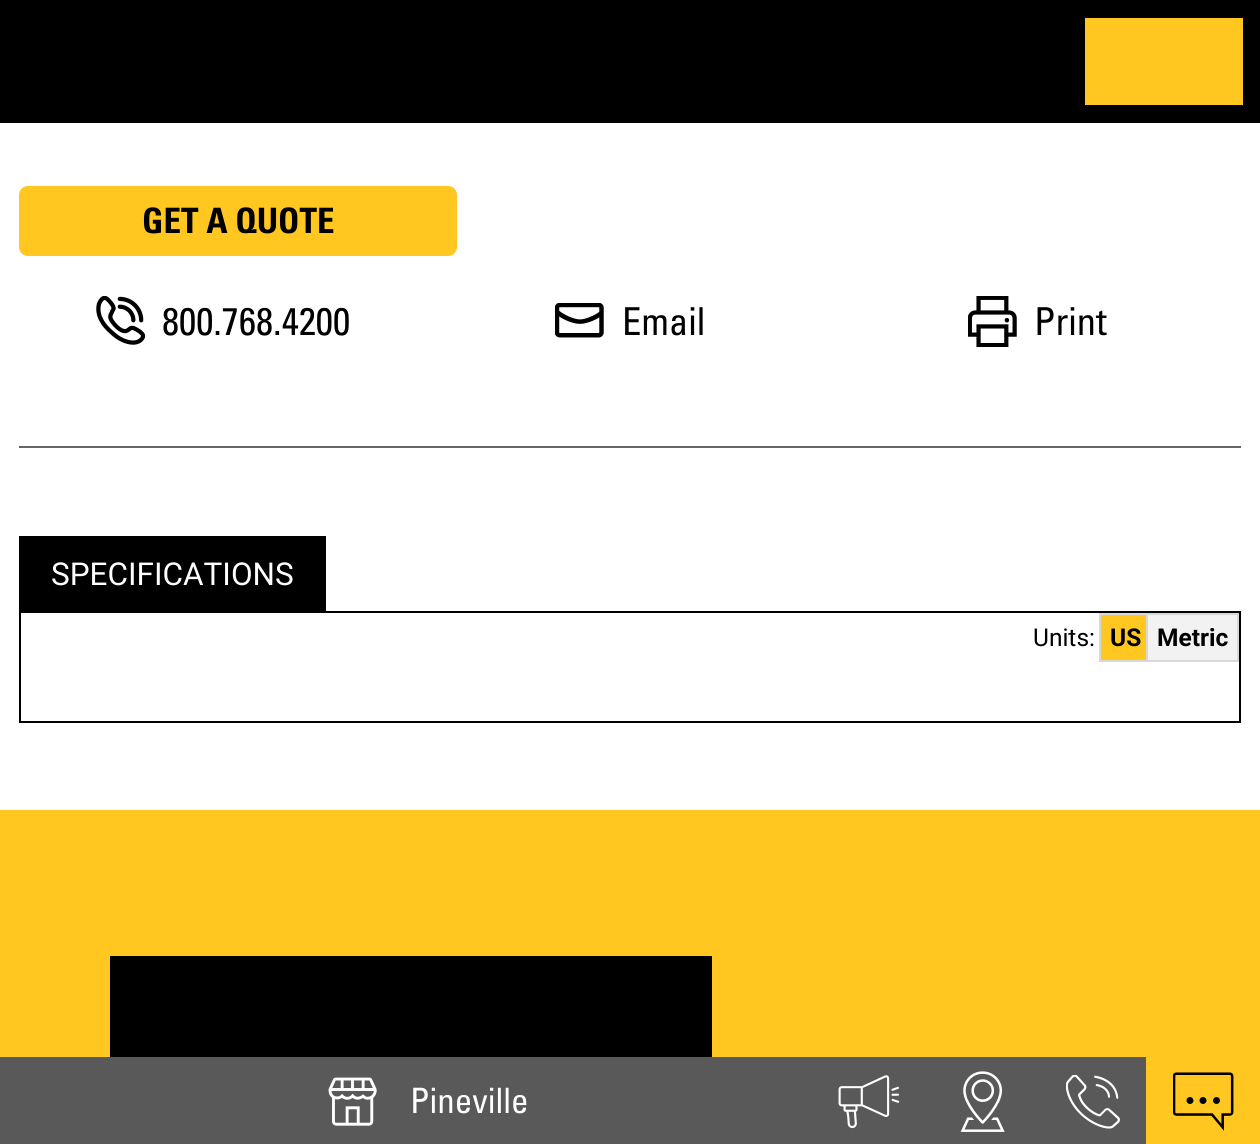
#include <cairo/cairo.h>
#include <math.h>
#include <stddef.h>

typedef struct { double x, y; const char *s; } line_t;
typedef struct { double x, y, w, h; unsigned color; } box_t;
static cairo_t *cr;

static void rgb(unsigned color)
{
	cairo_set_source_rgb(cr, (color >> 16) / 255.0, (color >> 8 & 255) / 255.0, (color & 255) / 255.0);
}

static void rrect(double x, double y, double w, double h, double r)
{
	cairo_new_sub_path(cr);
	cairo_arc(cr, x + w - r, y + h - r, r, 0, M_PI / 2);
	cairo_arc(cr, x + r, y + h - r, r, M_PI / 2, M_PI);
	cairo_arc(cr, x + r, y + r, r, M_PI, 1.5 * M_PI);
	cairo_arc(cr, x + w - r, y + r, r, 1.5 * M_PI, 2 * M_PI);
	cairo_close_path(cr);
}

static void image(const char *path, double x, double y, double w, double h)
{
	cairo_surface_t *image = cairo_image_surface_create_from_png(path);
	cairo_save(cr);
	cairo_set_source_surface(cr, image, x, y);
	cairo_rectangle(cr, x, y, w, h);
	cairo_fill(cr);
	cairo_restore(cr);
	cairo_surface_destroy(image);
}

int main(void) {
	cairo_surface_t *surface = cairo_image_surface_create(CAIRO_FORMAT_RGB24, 1260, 1144);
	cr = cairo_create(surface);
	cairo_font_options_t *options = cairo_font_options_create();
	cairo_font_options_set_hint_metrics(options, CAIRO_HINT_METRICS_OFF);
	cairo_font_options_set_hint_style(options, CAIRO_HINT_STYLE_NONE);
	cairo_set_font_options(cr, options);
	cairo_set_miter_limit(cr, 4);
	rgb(0xffffff);
	cairo_paint(cr);
	{
		static const box_t items[] = {
			{0, 0, 1260, 123, 0x000000},
			{1085, 18, 158, 87, 0xffc720},
			{19, 446, 1222, 2, 0x666666},
		};
		for (size_t i = 0; i < sizeof items / sizeof *items; i++) {
			rgb(items[i].color);
			cairo_rectangle(cr, items[i].x, items[i].y, items[i].w, items[i].h);
			cairo_fill(cr);
		}
	}
	rgb(0xffc720);
	rrect(19, 186, 438, 70, 9);
	cairo_fill(cr);
	image("img/1.png", 96, 296, 49, 49);
	image("img/2.png", 555, 303, 49, 35);
	image("img/3.png", 968, 296, 49, 51);
	rgb(0x000000);
	cairo_rectangle(cr, 19, 536, 307, 75);
	cairo_fill(cr);
	cairo_rectangle(cr, 20, 612, 1220, 110);
	cairo_stroke(cr);
	rgb(0xffc720);
	cairo_rectangle(cr, 1101, 615, 45, 45);
	cairo_fill(cr);
	cairo_rectangle(cr, 1100, 614, 51, 47);
	rgb(0xd8d8d8);
	cairo_stroke(cr);
	rgb(0xf2f2f2);
	cairo_rectangle(cr, 1147, 614, 91, 47);
	cairo_fill_preserve(cr);
	rgb(0xd8d8d8);
	cairo_stroke(cr);
	{
		static const box_t items[] = {
			{0, 810, 1260, 247, 0xffc720},
			{110, 956, 602, 101, 0x000000},
			{0, 1057, 1146, 87, 0x595959},
		};
		for (size_t i = 0; i < sizeof items / sizeof *items; i++) {
			rgb(items[i].color);
			cairo_rectangle(cr, items[i].x, items[i].y, items[i].w, items[i].h);
			cairo_fill(cr);
		}
	}
	image("img/4.png", 328, 1077, 49, 49);
	image("img/5.png", 838, 1075, 62, 54);
	image("img/6.png", 960, 1071, 45, 61);
	image("img/7.png", 1066, 1075, 54, 54);
	rgb(0xffc720);
	cairo_rectangle(cr, 1146, 1057, 114, 87);
	cairo_fill(cr);
	image("img/8.png", 1173, 1072, 61, 59);
	cairo_select_font_face(cr, "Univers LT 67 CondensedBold", CAIRO_FONT_SLANT_NORMAL, CAIRO_FONT_WEIGHT_BOLD);
	cairo_set_font_size(cr, 35);
	rgb(0x000000);
	cairo_move_to(cr, 142, 233);
	cairo_show_text(cr, "GET A QUOTE");
	cairo_select_font_face(cr, "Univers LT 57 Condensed", CAIRO_FONT_SLANT_NORMAL, CAIRO_FONT_WEIGHT_NORMAL);
	cairo_set_font_size(cr, 38.5);
	{
		static const line_t items[] = {
			{162, 335, "800.768.4200"},
			{622, 335, "Email"},
			{1034, 335, "Print"},
		};
		for (size_t i = 0; i < sizeof items / sizeof *items; i++) {
			cairo_move_to(cr, items[i].x, items[i].y);
			cairo_show_text(cr, items[i].s);
		}
	}
	cairo_select_font_face(cr, "Roboto", CAIRO_FONT_SLANT_NORMAL, CAIRO_FONT_WEIGHT_NORMAL);
	cairo_set_font_size(cr, 31.5);
	rgb(0xffffff);
	cairo_move_to(cr, 51, 585);
	cairo_show_text(cr, "SPECIFICATIONS");
	cairo_set_font_size(cr, 24.5);
	rgb(0x000000);
	cairo_move_to(cr, 1033, 646);
	cairo_show_text(cr, "Units:");
	cairo_select_font_face(cr, "Roboto", CAIRO_FONT_SLANT_NORMAL, CAIRO_FONT_WEIGHT_BOLD);
	cairo_move_to(cr, 1110, 646);
	cairo_show_text(cr, "US");
	cairo_move_to(cr, 1157, 646);
	cairo_show_text(cr, "Metric");
	cairo_select_font_face(cr, "Univers LT 57 Condensed", CAIRO_FONT_SLANT_NORMAL, CAIRO_FONT_WEIGHT_NORMAL);
	cairo_set_font_size(cr, 35);
	rgb(0xffffff);
	cairo_move_to(cr, 410, 1113);
	cairo_show_text(cr, "Pineville");
	cairo_surface_write_to_png(surface, "page.png");
	cairo_font_options_destroy(options);
	cairo_destroy(cr);
	cairo_surface_destroy(surface);
	return 0;
}
